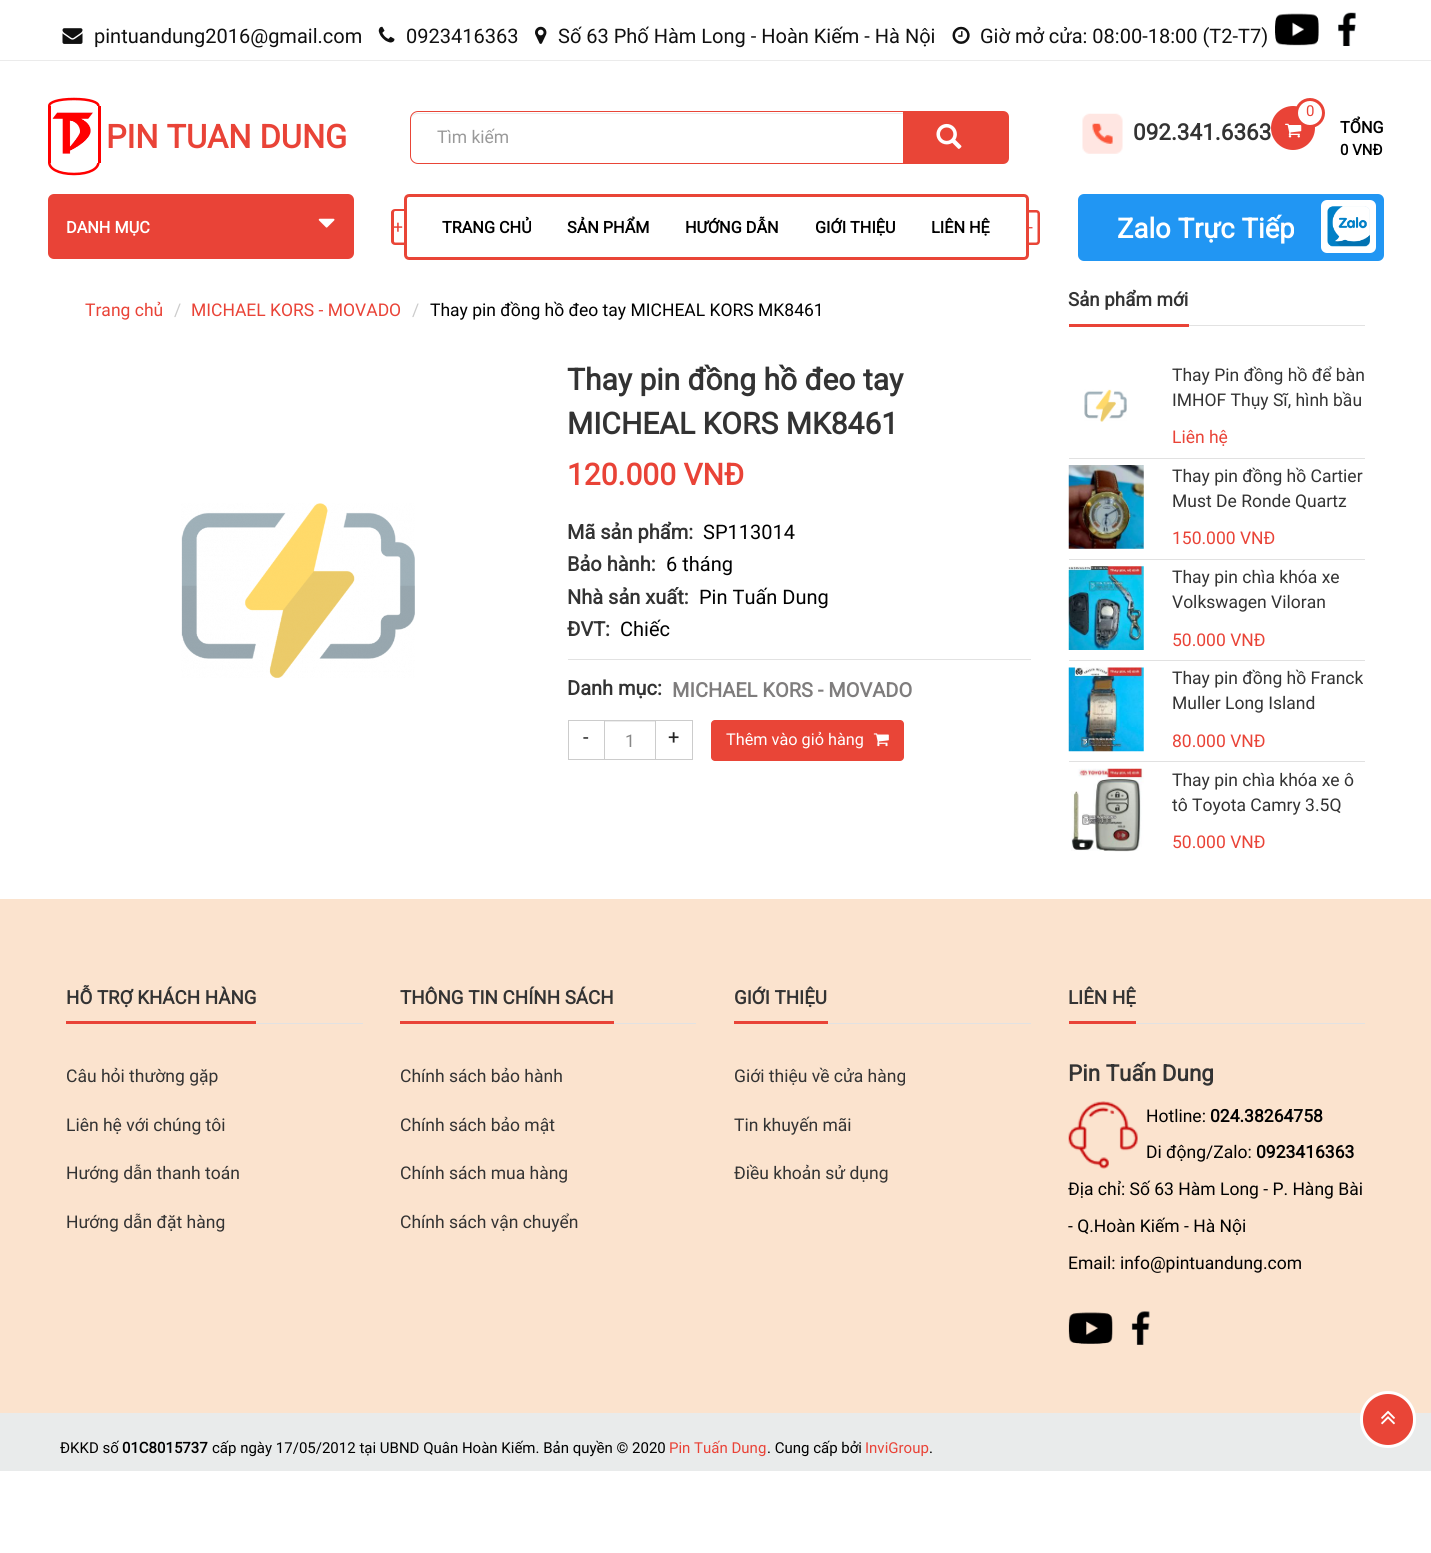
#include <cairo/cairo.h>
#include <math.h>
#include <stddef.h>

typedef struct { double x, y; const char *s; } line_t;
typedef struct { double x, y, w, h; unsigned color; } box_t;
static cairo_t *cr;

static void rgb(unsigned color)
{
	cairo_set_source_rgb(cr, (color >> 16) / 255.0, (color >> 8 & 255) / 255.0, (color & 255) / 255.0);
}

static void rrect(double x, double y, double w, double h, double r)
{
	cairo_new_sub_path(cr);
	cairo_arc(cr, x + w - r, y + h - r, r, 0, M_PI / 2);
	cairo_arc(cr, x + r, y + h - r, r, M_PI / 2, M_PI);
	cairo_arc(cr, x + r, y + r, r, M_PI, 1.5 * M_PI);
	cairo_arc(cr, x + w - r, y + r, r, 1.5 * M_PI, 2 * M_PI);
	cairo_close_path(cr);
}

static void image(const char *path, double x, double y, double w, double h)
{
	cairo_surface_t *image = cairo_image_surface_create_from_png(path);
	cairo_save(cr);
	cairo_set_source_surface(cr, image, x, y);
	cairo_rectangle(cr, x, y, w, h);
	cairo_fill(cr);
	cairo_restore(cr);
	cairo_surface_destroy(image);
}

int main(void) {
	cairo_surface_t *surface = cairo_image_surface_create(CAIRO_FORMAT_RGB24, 1431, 1553);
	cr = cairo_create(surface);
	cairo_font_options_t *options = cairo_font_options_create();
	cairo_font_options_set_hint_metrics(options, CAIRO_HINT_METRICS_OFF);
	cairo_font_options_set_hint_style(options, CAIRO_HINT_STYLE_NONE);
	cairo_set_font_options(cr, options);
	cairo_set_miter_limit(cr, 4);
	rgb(0xffffff);
	cairo_paint(cr);
	rgb(0xebebeb);
	cairo_rectangle(cr, 0, 60, 1431, 1);
	cairo_fill(cr);
	image("img/1.png", 62, 28, 21, 16);
	image("img/2.png", 378, 26, 17, 17);
	image("img/3.png", 535, 26, 12, 18);
	image("img/4.png", 952, 26, 18, 18);
	image("img/5.png", 1275, 13, 44, 33);
	image("img/6.png", 1338, 12, 18, 34);
	cairo_new_path(cr);
	cairo_move_to(cr, 74, 99);
	cairo_curve_to(cr, 106.5, 99, 106.5, 112.5, 74, 112.5);
	cairo_curve_to(cr, 41, 112.5, 41, 99, 74, 99);
	cairo_close_path(cr);
	rgb(0xff0000);
	cairo_set_line_width(cr, 2.5);
	cairo_stroke(cr);
	cairo_new_path(cr);
	cairo_move_to(cr, 74, 151);
	cairo_curve_to(cr, 106.5, 151, 106.5, 174, 74, 174);
	cairo_curve_to(cr, 41, 174, 41, 151, 74, 151);
	cairo_close_path(cr);
	cairo_stroke(cr);
	{
		static const box_t items[] = {
			{51, 106, 47, 57, 0xffffff},
			{98, 106, 3, 57, 0xff0000},
			{48, 106, 3, 57, 0xff0000},
		};
		for (size_t i = 0; i < sizeof items / sizeof *items; i++) {
			rgb(items[i].color);
			cairo_rectangle(cr, items[i].x, items[i].y, items[i].w, items[i].h);
			cairo_fill(cr);
		}
	}
	image("img/7.png", 52, 112, 41, 42);
	rgb(0xececec);
	cairo_new_path(cr);
	cairo_move_to(cr, 418, 114);
	cairo_line_to(cr, 902, 114);
	cairo_curve_to(cr, 906, 114, 909, 117, 909, 120);
	cairo_curve_to(cr, 909, 116, 907, 113, 903, 113);
	cairo_line_to(cr, 417, 113);
	cairo_curve_to(cr, 413, 113, 411, 116, 411, 120);
	cairo_curve_to(cr, 411, 117, 414, 114, 418, 114);
	cairo_close_path(cr);
	cairo_fill(cr);
	rrect(410.5, 111.5, 499, 52, 7.5);
	rgb(0xe94537);
	cairo_set_line_width(cr, 1);
	cairo_stroke(cr);
	cairo_new_path(cr);
	cairo_move_to(cr, 903, 111);
	cairo_line_to(cr, 1003, 111);
	cairo_curve_to(cr, 1006.5, 111, 1009, 113.5, 1009, 117);
	cairo_line_to(cr, 1009, 158);
	cairo_curve_to(cr, 1009, 161.5, 1006.5, 164, 1003, 164);
	cairo_line_to(cr, 903, 164);
	cairo_close_path(cr);
	cairo_fill(cr);
	image("img/8.png", 936, 123, 26, 26);
	image("img/9.png", 1082, 113, 41, 41);
	rgb(0xe94337);
	cairo_arc(cr, 1293, 128, 22, 0, 2 * M_PI);
	cairo_fill(cr);
	image("img/10.png", 1285, 123, 17, 15);
	rgb(0xffffff);
	cairo_arc(cr, 1310, 113, 13.5, 0, 2 * M_PI);
	cairo_fill_preserve(cr);
	rgb(0xe94337);
	cairo_set_line_width(cr, 3);
	cairo_stroke(cr);
	rrect(48, 194, 306, 65, 6);
	cairo_fill(cr);
	image("img/11.png", 318, 218, 17, 10);
	rgb(0xe94537);
	cairo_set_fill_rule(cr, CAIRO_FILL_RULE_EVEN_ODD);
	cairo_new_path(cr);
	cairo_move_to(cr, 395, 209);
	cairo_line_to(cr, 404, 209);
	cairo_line_to(cr, 404, 245);
	cairo_line_to(cr, 395, 245);
	cairo_curve_to(cr, 393, 245, 391, 243.5, 391, 241);
	cairo_line_to(cr, 391, 212.5);
	cairo_curve_to(cr, 391, 210.5, 393, 209, 395, 209);
	cairo_close_path(cr);
	cairo_move_to(cr, 395, 211);
	cairo_line_to(cr, 404, 211);
	cairo_line_to(cr, 404, 242.5);
	cairo_line_to(cr, 395, 242.5);
	cairo_curve_to(cr, 394.5, 242.5, 394, 242, 394, 241);
	cairo_line_to(cr, 394, 212.5);
	cairo_curve_to(cr, 394, 212, 394.5, 211, 395, 211);
	cairo_close_path(cr);
	cairo_fill(cr);
	rrect(405.5, 195.5, 622, 63, 3.5);
	cairo_stroke(cr);
	cairo_new_path(cr);
	cairo_move_to(cr, 1029, 210);
	cairo_line_to(cr, 1036, 210);
	cairo_curve_to(cr, 1038.5, 210, 1040, 211.5, 1040, 214);
	cairo_line_to(cr, 1040, 241);
	cairo_curve_to(cr, 1040, 243.5, 1038.5, 245, 1036, 245);
	cairo_line_to(cr, 1029, 245);
	cairo_close_path(cr);
	cairo_move_to(cr, 1029, 212.5);
	cairo_line_to(cr, 1036, 212.5);
	cairo_curve_to(cr, 1037, 212.5, 1037.5, 213, 1037.5, 214);
	cairo_line_to(cr, 1037.5, 241);
	cairo_curve_to(cr, 1037.5, 242, 1037, 242.5, 1036, 242.5);
	cairo_line_to(cr, 1029, 242.5);
	cairo_close_path(cr);
	cairo_fill(cr);
	rgb(0x2196f3);
	rrect(1078, 194, 306, 67, 6);
	cairo_fill(cr);
	rgb(0xffffff);
	rrect(1321, 200, 55, 53, 6);
	cairo_fill(cr);
	image("img/12.png", 1327, 206, 43, 41);
	image("img/13.png", 181, 503, 234, 175);
	rgb(0xe2e2e2);
	cairo_rectangle(cr, 568, 659, 463, 1);
	cairo_fill(cr);
	cairo_rectangle(cr, 568.5, 720.5, 36, 39);
	rgb(0xcccccc);
	cairo_set_line_width(cr, 1);
	cairo_stroke(cr);
	{
		static const box_t items[] = {
			{605, 721, 50, 1, 0xececec},
			{605, 720, 50, 1, 0xcccccc},
			{605, 759, 50, 1, 0xcccccc},
		};
		for (size_t i = 0; i < sizeof items / sizeof *items; i++) {
			rgb(items[i].color);
			cairo_rectangle(cr, items[i].x, items[i].y, items[i].w, items[i].h);
			cairo_fill(cr);
		}
	}
	cairo_rectangle(cr, 655.5, 720.5, 37, 39);
	cairo_stroke(cr);
	rgb(0xe94537);
	rrect(711, 720, 193, 41, 4);
	cairo_fill(cr);
	image("img/14.png", 873, 733, 16, 14);
	{
		static const box_t items[] = {
			{1189, 325, 176, 1, 0xe2e2e2},
			{1069, 324, 120, 3, 0xe94337},
			{1069, 458, 296, 1, 0xe1e1e1},
		};
		for (size_t i = 0; i < sizeof items / sizeof *items; i++) {
			rgb(items[i].color);
			cairo_rectangle(cr, items[i].x, items[i].y, items[i].w, items[i].h);
			cairo_fill(cr);
		}
	}
	image("img/15.png", 1084, 389, 43, 33);
	cairo_rectangle(cr, 1069, 559, 296, 1);
	cairo_fill(cr);
	image("img/16.png", 1068, 465, 76, 84);
	cairo_rectangle(cr, 1069, 660, 296, 1);
	cairo_fill(cr);
	image("img/17.png", 1068, 566, 76, 84);
	cairo_rectangle(cr, 1069, 761, 296, 1);
	cairo_fill(cr);
	image("img/18.png", 1068, 667, 76, 85);
	image("img/19.png", 1071, 768, 73, 84);
	{
		static const box_t items[] = {
			{0, 899, 1431, 514, 0xfbe3ce},
			{256, 1023, 107, 1, 0xe2e2e2},
			{66, 1021, 190, 3, 0xe94337},
			{614, 1023, 82, 1, 0xe2e2e2},
			{400, 1021, 214, 3, 0xe94337},
			{828, 1023, 203, 1, 0xe2e2e2},
			{734, 1021, 94, 3, 0xe94337},
			{1136, 1023, 229, 1, 0xe2e2e2},
			{1069, 1021, 67, 3, 0xe94337},
		};
		for (size_t i = 0; i < sizeof items / sizeof *items; i++) {
			rgb(items[i].color);
			cairo_rectangle(cr, items[i].x, items[i].y, items[i].w, items[i].h);
			cairo_fill(cr);
		}
	}
	image("img/20.png", 1068, 1101, 70, 68);
	image("img/21.png", 1068, 1312, 45, 32);
	image("img/22.png", 1131, 1311, 19, 34);
	rgb(0xe9ebeb);
	cairo_rectangle(cr, 0, 1413, 1431, 58);
	cairo_fill(cr);
	rgb(0xe94537);
	rrect(1361.5, 1392.5, 53, 54, 26.5);
	cairo_fill_preserve(cr);
	rgb(0xffffff);
	cairo_set_line_width(cr, 3);
	cairo_stroke(cr);
	image("img/23.png", 1381, 1410, 14, 15);
	cairo_select_font_face(cr, "Roboto", CAIRO_FONT_SLANT_NORMAL, CAIRO_FONT_WEIGHT_NORMAL);
	cairo_set_font_size(cr, 20);
	rgb(0x101010);
	{
		static const line_t items[] = {
			{94, 43, "pintuandung2016@gmail.com"},
			{406, 43, "0923416363"},
			{558, 43, "Số 63 Phố Hàm Long - Hoàn Kiếm - Hà Nội"},
			{980, 43, "Giờ mở cửa: 08:00-18:00 (T2-T7)"},
		};
		for (size_t i = 0; i < sizeof items / sizeof *items; i++) {
			cairo_move_to(cr, items[i].x, items[i].y);
			cairo_show_text(cr, items[i].s);
		}
	}
	cairo_select_font_face(cr, "Roboto", CAIRO_FONT_SLANT_NORMAL, CAIRO_FONT_WEIGHT_BOLD);
	cairo_set_font_size(cr, 32.5);
	rgb(0xe94337);
	cairo_move_to(cr, 106, 148);
	cairo_show_text(cr, "PIN TUAN DUNG");
	cairo_select_font_face(cr, "Roboto", CAIRO_FONT_SLANT_NORMAL, CAIRO_FONT_WEIGHT_NORMAL);
	cairo_set_font_size(cr, 17.5);
	rgb(0x999999);
	cairo_move_to(cr, 437, 143);
	cairo_show_text(cr, "Tìm kiếm");
	cairo_select_font_face(cr, "Roboto", CAIRO_FONT_SLANT_NORMAL, CAIRO_FONT_WEIGHT_BOLD);
	cairo_set_font_size(cr, 22.5);
	rgb(0x333333);
	cairo_move_to(cr, 1133, 140);
	cairo_show_text(cr, "092.341.6363");
	cairo_select_font_face(cr, "Roboto", CAIRO_FONT_SLANT_NORMAL, CAIRO_FONT_WEIGHT_NORMAL);
	cairo_set_font_size(cr, 15);
	rgb(0xe94337);
	cairo_move_to(cr, 1306, 116);
	cairo_show_text(cr, "0");
	cairo_select_font_face(cr, "Roboto", CAIRO_FONT_SLANT_NORMAL, CAIRO_FONT_WEIGHT_BOLD);
	cairo_set_font_size(cr, 16.25);
	rgb(0x000000);
	cairo_move_to(cr, 1340, 133);
	cairo_show_text(cr, "TỔNG");
	cairo_set_font_size(cr, 15);
	cairo_move_to(cr, 1340, 155);
	cairo_show_text(cr, "0 VNĐ");
	cairo_set_font_size(cr, 16.25);
	rgb(0xffffff);
	cairo_move_to(cr, 66, 233);
	cairo_show_text(cr, "DANH MỤC");
	cairo_select_font_face(cr, "Roboto", CAIRO_FONT_SLANT_NORMAL, CAIRO_FONT_WEIGHT_NORMAL);
	cairo_set_font_size(cr, 17.5);
	rgb(0xe94337);
	cairo_move_to(cr, 393, 233);
	cairo_show_text(cr, "+");
	cairo_select_font_face(cr, "Roboto", CAIRO_FONT_SLANT_NORMAL, CAIRO_FONT_WEIGHT_BOLD);
	cairo_set_font_size(cr, 16.25);
	rgb(0x000000);
	{
		static const line_t items[] = {
			{442, 233, "TRANG CHỦ"},
			{567, 233, "SẢN PHẨM"},
			{685, 233, "HƯỚNG DẪN"},
			{815, 233, "GIỚI THIỆU"},
			{931, 233, "LIÊN HỆ"},
		};
		for (size_t i = 0; i < sizeof items / sizeof *items; i++) {
			cairo_move_to(cr, items[i].x, items[i].y);
			cairo_show_text(cr, items[i].s);
		}
	}
	cairo_select_font_face(cr, "Roboto", CAIRO_FONT_SLANT_NORMAL, CAIRO_FONT_WEIGHT_NORMAL);
	cairo_set_font_size(cr, 17.5);
	rgb(0xe94337);
	cairo_move_to(cr, 1028, 233);
	cairo_show_text(cr, "-");
	cairo_select_font_face(cr, "Roboto", CAIRO_FONT_SLANT_NORMAL, CAIRO_FONT_WEIGHT_BOLD);
	cairo_set_font_size(cr, 27.5);
	rgb(0xffffff);
	cairo_move_to(cr, 1117, 238);
	cairo_show_text(cr, "Zalo Trực Tiếp");
	cairo_select_font_face(cr, "Roboto", CAIRO_FONT_SLANT_NORMAL, CAIRO_FONT_WEIGHT_NORMAL);
	cairo_set_font_size(cr, 17.5);
	rgb(0xe94337);
	cairo_move_to(cr, 85, 316);
	cairo_show_text(cr, "Trang chủ");
	rgb(0xcccccc);
	cairo_move_to(cr, 174, 316);
	cairo_show_text(cr, "/");
	rgb(0xe94337);
	cairo_move_to(cr, 191, 316);
	cairo_show_text(cr, "MICHAEL KORS - MOVADO");
	rgb(0xcccccc);
	cairo_move_to(cr, 412, 316);
	cairo_show_text(cr, "/");
	rgb(0x000000);
	cairo_move_to(cr, 430, 316);
	cairo_show_text(cr, "Thay pin đồng hồ đeo tay MICHEAL KORS MK8461");
	cairo_select_font_face(cr, "Roboto", CAIRO_FONT_SLANT_NORMAL, CAIRO_FONT_WEIGHT_BOLD);
	cairo_set_font_size(cr, 30);
	rgb(0x333333);
	cairo_move_to(cr, 567, 390);
	cairo_show_text(cr, "Thay pin đồng hồ đeo tay");
	cairo_move_to(cr, 567, 434);
	cairo_show_text(cr, "MICHEAL KORS MK8461");
	rgb(0xe94337);
	cairo_move_to(cr, 567, 485);
	cairo_show_text(cr, "120.000 VNĐ");
	cairo_set_font_size(cr, 20);
	rgb(0x333333);
	cairo_move_to(cr, 567, 539);
	cairo_show_text(cr, "Mã sản phẩm:");
	cairo_select_font_face(cr, "Roboto", CAIRO_FONT_SLANT_NORMAL, CAIRO_FONT_WEIGHT_NORMAL);
	rgb(0x000000);
	cairo_move_to(cr, 703, 539);
	cairo_show_text(cr, "SP113014");
	cairo_select_font_face(cr, "Roboto", CAIRO_FONT_SLANT_NORMAL, CAIRO_FONT_WEIGHT_BOLD);
	rgb(0x333333);
	cairo_move_to(cr, 567, 571);
	cairo_show_text(cr, "Bảo hành:");
	cairo_select_font_face(cr, "Roboto", CAIRO_FONT_SLANT_NORMAL, CAIRO_FONT_WEIGHT_NORMAL);
	rgb(0x000000);
	cairo_move_to(cr, 666, 571);
	cairo_show_text(cr, "6 tháng");
	cairo_select_font_face(cr, "Roboto", CAIRO_FONT_SLANT_NORMAL, CAIRO_FONT_WEIGHT_BOLD);
	rgb(0x333333);
	cairo_move_to(cr, 567, 604);
	cairo_show_text(cr, "Nhà sản xuất:");
	cairo_select_font_face(cr, "Roboto", CAIRO_FONT_SLANT_NORMAL, CAIRO_FONT_WEIGHT_NORMAL);
	rgb(0x000000);
	cairo_move_to(cr, 699, 604);
	cairo_show_text(cr, "Pin Tuấn Dung");
	cairo_select_font_face(cr, "Roboto", CAIRO_FONT_SLANT_NORMAL, CAIRO_FONT_WEIGHT_BOLD);
	rgb(0x333333);
	cairo_move_to(cr, 567, 636);
	cairo_show_text(cr, "ĐVT:");
	cairo_select_font_face(cr, "Roboto", CAIRO_FONT_SLANT_NORMAL, CAIRO_FONT_WEIGHT_NORMAL);
	rgb(0x000000);
	cairo_move_to(cr, 620, 636);
	cairo_show_text(cr, "Chiếc");
	cairo_select_font_face(cr, "Roboto", CAIRO_FONT_SLANT_NORMAL, CAIRO_FONT_WEIGHT_BOLD);
	rgb(0x333333);
	cairo_move_to(cr, 567, 695);
	cairo_show_text(cr, "Danh mục:");
	rgb(0x7f7d7d);
	cairo_move_to(cr, 672, 697);
	cairo_show_text(cr, "MICHAEL KORS - MOVADO");
	cairo_select_font_face(cr, "Roboto", CAIRO_FONT_SLANT_NORMAL, CAIRO_FONT_WEIGHT_NORMAL);
	rgb(0x242424);
	cairo_move_to(cr, 583, 744);
	cairo_show_text(cr, "-");
	cairo_set_font_size(cr, 17.5);
	rgb(0x888888);
	cairo_move_to(cr, 625, 747);
	cairo_show_text(cr, "1");
	cairo_set_font_size(cr, 20);
	rgb(0x242424);
	cairo_move_to(cr, 668, 744);
	cairo_show_text(cr, "+");
	cairo_set_font_size(cr, 16.25);
	rgb(0xffffff);
	cairo_move_to(cr, 726, 745);
	cairo_show_text(cr, "Thêm vào giỏ hàng");
	cairo_select_font_face(cr, "Roboto", CAIRO_FONT_SLANT_NORMAL, CAIRO_FONT_WEIGHT_BOLD);
	cairo_set_font_size(cr, 18.75);
	rgb(0x333333);
	cairo_move_to(cr, 1068, 306);
	cairo_show_text(cr, "Sản phẩm mới");
	cairo_select_font_face(cr, "Roboto", CAIRO_FONT_SLANT_NORMAL, CAIRO_FONT_WEIGHT_NORMAL);
	cairo_set_font_size(cr, 17.5);
	cairo_move_to(cr, 1172, 381);
	cairo_show_text(cr, "Thay Pin đồng hồ để bàn");
	cairo_move_to(cr, 1172, 406);
	cairo_show_text(cr, "IMHOF Thụy Sĩ, hình bầu");
	rgb(0xe94337);
	cairo_move_to(cr, 1172, 443);
	cairo_show_text(cr, "Liên hệ");
	rgb(0x333333);
	cairo_move_to(cr, 1172, 482);
	cairo_show_text(cr, "Thay pin đồng hồ Cartier");
	cairo_move_to(cr, 1172, 507);
	cairo_show_text(cr, "Must De Ronde Quartz");
	rgb(0xe94337);
	cairo_move_to(cr, 1172, 544);
	cairo_show_text(cr, "150.000 VNĐ");
	rgb(0x333333);
	cairo_move_to(cr, 1172, 583);
	cairo_show_text(cr, "Thay pin chìa khóa xe");
	cairo_move_to(cr, 1172, 608);
	cairo_show_text(cr, "Volkswagen Viloran");
	rgb(0xe94337);
	cairo_move_to(cr, 1172, 646);
	cairo_show_text(cr, "50.000 VNĐ");
	rgb(0x333333);
	cairo_move_to(cr, 1172, 684);
	cairo_show_text(cr, "Thay pin đồng hồ Franck");
	cairo_move_to(cr, 1172, 709);
	cairo_show_text(cr, "Muller Long Island");
	rgb(0xe94337);
	cairo_move_to(cr, 1172, 747);
	cairo_show_text(cr, "80.000 VNĐ");
	rgb(0x333333);
	cairo_move_to(cr, 1172, 786);
	cairo_show_text(cr, "Thay pin chìa khóa xe ô");
	cairo_move_to(cr, 1172, 811);
	cairo_show_text(cr, "tô Toyota Camry 3.5Q");
	rgb(0xe94337);
	cairo_move_to(cr, 1172, 848);
	cairo_show_text(cr, "50.000 VNĐ");
	cairo_select_font_face(cr, "Roboto", CAIRO_FONT_SLANT_NORMAL, CAIRO_FONT_WEIGHT_BOLD);
	cairo_set_font_size(cr, 18.75);
	rgb(0x333333);
	cairo_move_to(cr, 66, 1004);
	cairo_show_text(cr, "HỖ TRỢ KHÁCH HÀNG");
	cairo_select_font_face(cr, "Roboto", CAIRO_FONT_SLANT_NORMAL, CAIRO_FONT_WEIGHT_NORMAL);
	cairo_set_font_size(cr, 17.5);
	{
		static const line_t items[] = {
			{66, 1082, "Câu hỏi thường gặp"},
			{66, 1131, "Liên hệ với chúng tôi"},
			{66, 1179, "Hướng dẫn thanh toán"},
			{66, 1228, "Hướng dẫn đặt hàng"},
		};
		for (size_t i = 0; i < sizeof items / sizeof *items; i++) {
			cairo_move_to(cr, items[i].x, items[i].y);
			cairo_show_text(cr, items[i].s);
		}
	}
	cairo_select_font_face(cr, "Roboto", CAIRO_FONT_SLANT_NORMAL, CAIRO_FONT_WEIGHT_BOLD);
	cairo_set_font_size(cr, 18.75);
	cairo_move_to(cr, 400, 1004);
	cairo_show_text(cr, "THÔNG TIN CHÍNH SÁCH");
	cairo_select_font_face(cr, "Roboto", CAIRO_FONT_SLANT_NORMAL, CAIRO_FONT_WEIGHT_NORMAL);
	cairo_set_font_size(cr, 17.5);
	{
		static const line_t items[] = {
			{400, 1082, "Chính sách bảo hành"},
			{400, 1131, "Chính sách bảo mật"},
			{400, 1179, "Chính sách mua hàng"},
			{400, 1228, "Chính sách vận chuyển"},
		};
		for (size_t i = 0; i < sizeof items / sizeof *items; i++) {
			cairo_move_to(cr, items[i].x, items[i].y);
			cairo_show_text(cr, items[i].s);
		}
	}
	cairo_select_font_face(cr, "Roboto", CAIRO_FONT_SLANT_NORMAL, CAIRO_FONT_WEIGHT_BOLD);
	cairo_set_font_size(cr, 18.75);
	cairo_move_to(cr, 734, 1004);
	cairo_show_text(cr, "GIỚI THIỆU");
	cairo_select_font_face(cr, "Roboto", CAIRO_FONT_SLANT_NORMAL, CAIRO_FONT_WEIGHT_NORMAL);
	cairo_set_font_size(cr, 17.5);
	{
		static const line_t items[] = {
			{734, 1082, "Giới thiệu về cửa hàng"},
			{734, 1131, "Tin khuyến mãi"},
			{734, 1179, "Điều khoản sử dụng"},
		};
		for (size_t i = 0; i < sizeof items / sizeof *items; i++) {
			cairo_move_to(cr, items[i].x, items[i].y);
			cairo_show_text(cr, items[i].s);
		}
	}
	cairo_select_font_face(cr, "Roboto", CAIRO_FONT_SLANT_NORMAL, CAIRO_FONT_WEIGHT_BOLD);
	cairo_set_font_size(cr, 18.75);
	cairo_move_to(cr, 1068, 1004);
	cairo_show_text(cr, "LIÊN HỆ");
	cairo_set_font_size(cr, 22.5);
	cairo_move_to(cr, 1068, 1081);
	cairo_show_text(cr, "Pin Tuấn Dung");
	cairo_select_font_face(cr, "Roboto", CAIRO_FONT_SLANT_NORMAL, CAIRO_FONT_WEIGHT_NORMAL);
	cairo_set_font_size(cr, 17.5);
	rgb(0x000000);
	cairo_move_to(cr, 1146, 1122);
	cairo_show_text(cr, "Hotline:");
	cairo_select_font_face(cr, "Roboto", CAIRO_FONT_SLANT_NORMAL, CAIRO_FONT_WEIGHT_BOLD);
	cairo_move_to(cr, 1210, 1122);
	cairo_show_text(cr, "024.38264758");
	cairo_select_font_face(cr, "Roboto", CAIRO_FONT_SLANT_NORMAL, CAIRO_FONT_WEIGHT_NORMAL);
	cairo_move_to(cr, 1146, 1158);
	cairo_show_text(cr, "Di động/Zalo:");
	cairo_select_font_face(cr, "Roboto", CAIRO_FONT_SLANT_NORMAL, CAIRO_FONT_WEIGHT_BOLD);
	cairo_move_to(cr, 1256, 1158);
	cairo_show_text(cr, "0923416363");
	cairo_select_font_face(cr, "Roboto", CAIRO_FONT_SLANT_NORMAL, CAIRO_FONT_WEIGHT_NORMAL);
	{
		static const line_t items[] = {
			{1068, 1195, "Địa chỉ: Số 63 Hàm Long - P. Hàng Bài"},
			{1068, 1232, "- Q.Hoàn Kiếm - Hà Nội"},
			{1068, 1269, "Email: info@pintuandung.com"},
		};
		for (size_t i = 0; i < sizeof items / sizeof *items; i++) {
			cairo_move_to(cr, items[i].x, items[i].y);
			cairo_show_text(cr, items[i].s);
		}
	}
	cairo_set_font_size(cr, 15);
	cairo_move_to(cr, 60, 1453);
	cairo_show_text(cr, "ĐKKD số");
	cairo_select_font_face(cr, "Roboto", CAIRO_FONT_SLANT_NORMAL, CAIRO_FONT_WEIGHT_BOLD);
	cairo_move_to(cr, 122, 1453);
	cairo_show_text(cr, "01C8015737");
	cairo_select_font_face(cr, "Roboto", CAIRO_FONT_SLANT_NORMAL, CAIRO_FONT_WEIGHT_NORMAL);
	cairo_move_to(cr, 212, 1453);
	cairo_show_text(cr, "cấp ngày 17/05/2012 tại UBND Quân Hoàn Kiếm. Bản quyền © 2020");
	rgb(0xe94337);
	cairo_move_to(cr, 669, 1453);
	cairo_show_text(cr, "Pin Tuấn Dung");
	rgb(0x000000);
	cairo_move_to(cr, 767, 1453);
	cairo_show_text(cr, ". Cung cấp bởi");
	rgb(0xe94337);
	cairo_move_to(cr, 865, 1453);
	cairo_show_text(cr, "InviGroup");
	rgb(0x000000);
	cairo_move_to(cr, 929, 1453);
	cairo_show_text(cr, ".");
	cairo_surface_write_to_png(surface, "page.png");
	cairo_font_options_destroy(options);
	cairo_destroy(cr);
	cairo_surface_destroy(surface);
	return 0;
}
